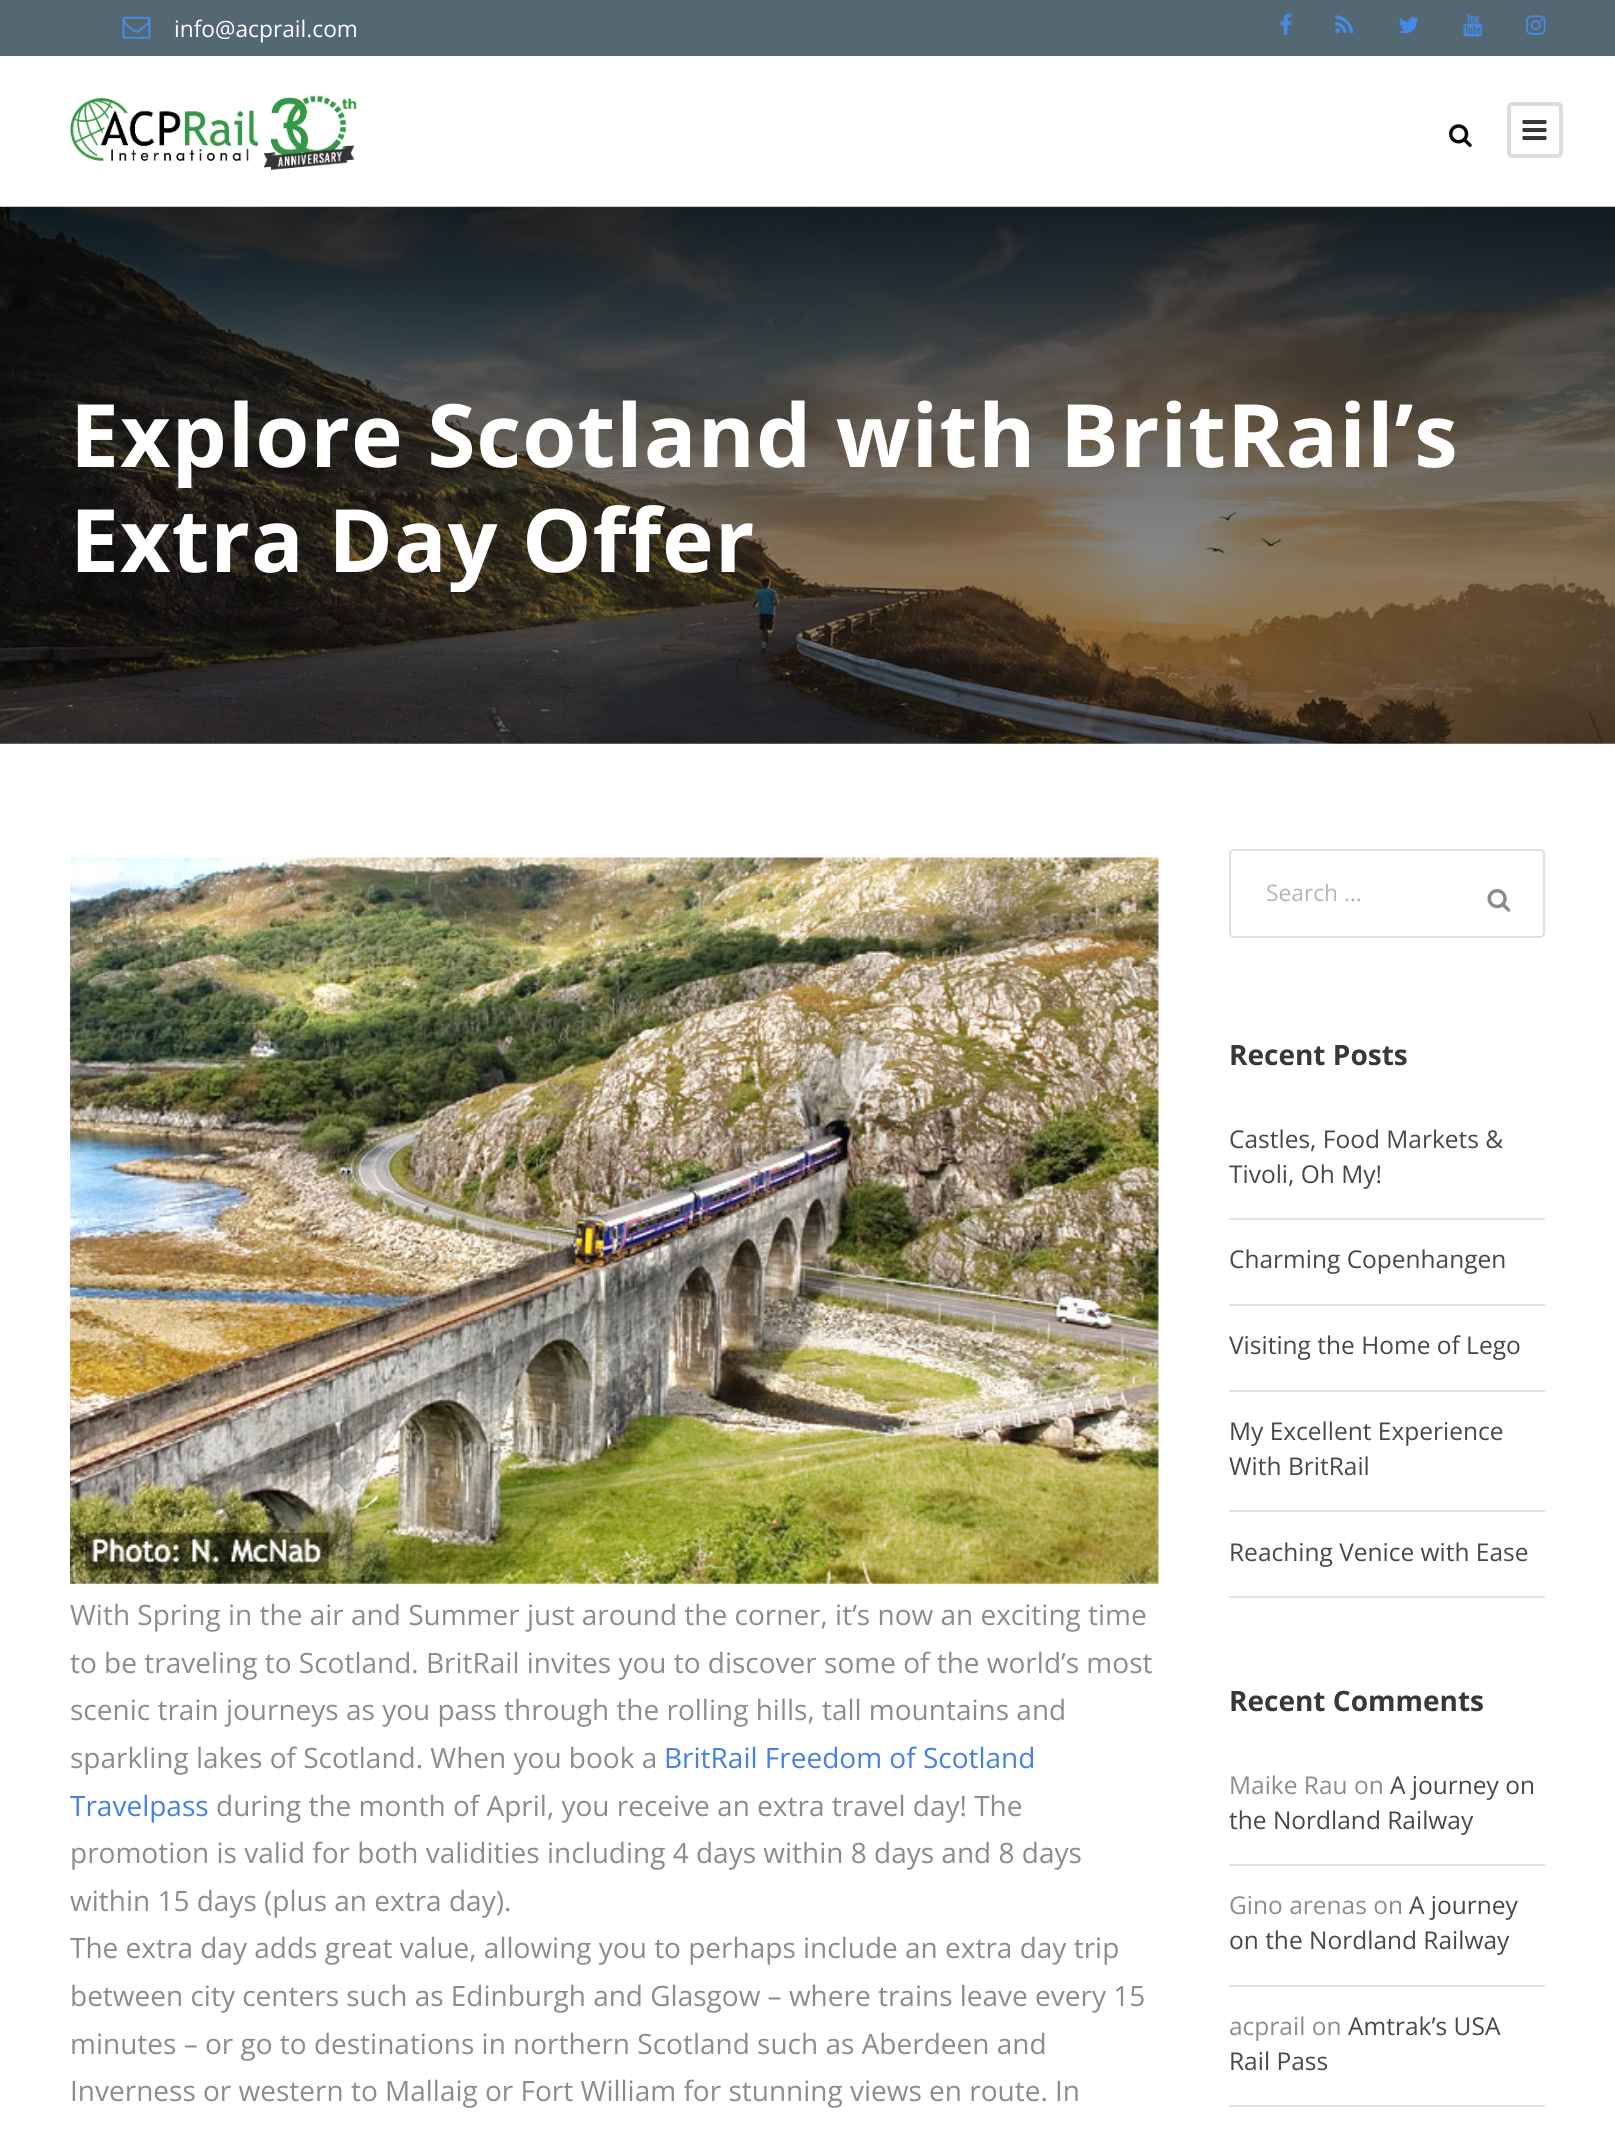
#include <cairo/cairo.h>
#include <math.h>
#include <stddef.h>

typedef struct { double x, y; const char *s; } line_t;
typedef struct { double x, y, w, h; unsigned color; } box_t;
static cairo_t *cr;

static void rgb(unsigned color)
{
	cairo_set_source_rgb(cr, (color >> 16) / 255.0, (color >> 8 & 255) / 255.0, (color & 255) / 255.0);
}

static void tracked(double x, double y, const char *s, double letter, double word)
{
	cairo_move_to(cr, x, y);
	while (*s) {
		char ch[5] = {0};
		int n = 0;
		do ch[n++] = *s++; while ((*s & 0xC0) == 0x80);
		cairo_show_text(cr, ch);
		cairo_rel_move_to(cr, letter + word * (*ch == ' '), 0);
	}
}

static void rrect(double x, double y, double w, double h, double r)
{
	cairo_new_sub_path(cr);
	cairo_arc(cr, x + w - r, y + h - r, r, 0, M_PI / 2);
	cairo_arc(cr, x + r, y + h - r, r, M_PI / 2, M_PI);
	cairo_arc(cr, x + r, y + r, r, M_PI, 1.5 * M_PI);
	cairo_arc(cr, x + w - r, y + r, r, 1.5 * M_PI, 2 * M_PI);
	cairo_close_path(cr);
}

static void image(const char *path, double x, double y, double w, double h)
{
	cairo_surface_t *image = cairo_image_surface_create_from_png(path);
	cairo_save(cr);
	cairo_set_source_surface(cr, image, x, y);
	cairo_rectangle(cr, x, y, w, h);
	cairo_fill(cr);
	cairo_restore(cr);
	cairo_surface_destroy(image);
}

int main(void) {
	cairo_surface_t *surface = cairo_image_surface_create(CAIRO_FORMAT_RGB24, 1615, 2131);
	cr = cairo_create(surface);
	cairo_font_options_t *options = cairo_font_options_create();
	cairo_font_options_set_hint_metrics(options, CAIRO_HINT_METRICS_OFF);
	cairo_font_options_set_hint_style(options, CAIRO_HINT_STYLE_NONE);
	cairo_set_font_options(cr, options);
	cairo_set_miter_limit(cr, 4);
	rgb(0xffffff);
	cairo_paint(cr);
	rgb(0x546874);
	cairo_rectangle(cr, 0, 0, 1615, 56);
	cairo_fill(cr);
	image("img/1.png", 122, 16, 29, 23);
	image("img/2.png", 1280, 13, 12, 22);
	image("img/3.png", 1335, 15, 19, 19);
	image("img/4.png", 1399, 17, 20, 17);
	image("img/5.png", 1463, 13, 20, 24);
	image("img/6.png", 1526, 15, 20, 20);
	image("img/7.png", 70, 95, 287, 76);
	image("img/8.png", 1449, 124, 23, 23);
	rrect(1509, 104, 52, 52, 3);
	rgb(0xdddddd);
	cairo_set_line_width(cr, 4);
	cairo_stroke(cr);
	image("img/9.png", 1522, 120, 25, 20);
	image("img/10.png", 0, 206, 1615, 538);
	image("img/11.png", 70, 857, 1089, 727);
	rrect(1230, 850, 314, 87, 4);
	rgb(0xe0e0e0);
	cairo_set_line_width(cr, 2);
	cairo_stroke(cr);
	image("img/12.png", 1487, 889, 24, 23);
	{
		static const box_t items[] = {
			{1229, 1218, 316, 2, 0xe1e1e1},
			{1229, 1304, 316, 2, 0xe1e1e1},
			{1229, 1390, 316, 2, 0xe1e1e1},
			{1229, 1510, 316, 2, 0xe1e1e1},
			{1229, 1596, 316, 2, 0xe1e1e1},
			{1229, 1864, 316, 2, 0xe1e1e1},
			{1229, 1985, 316, 2, 0xe1e1e1},
			{1229, 2105, 316, 2, 0xe1e1e1},
		};
		for (size_t i = 0; i < sizeof items / sizeof *items; i++) {
			rgb(items[i].color);
			cairo_rectangle(cr, items[i].x, items[i].y, items[i].w, items[i].h);
			cairo_fill(cr);
		}
	}
	cairo_select_font_face(cr, "Open Sans", CAIRO_FONT_SLANT_NORMAL, CAIRO_FONT_WEIGHT_NORMAL);
	cairo_set_font_size(cr, 22.75);
	rgb(0xffffff);
	cairo_move_to(cr, 174, 37);
	cairo_show_text(cr, "info@acprail.com");
	cairo_select_font_face(cr, "Open Sans", CAIRO_FONT_SLANT_NORMAL, CAIRO_FONT_WEIGHT_BOLD);
	cairo_set_font_size(cr, 87.5);
	tracked(70, 467, "Explore Scotland with BritRail’s", 0.9, 0);
	cairo_save(cr);
	cairo_rectangle(cr, 70, 369, 1475, 223);
	cairo_clip(cr);
	tracked(70, 572, "Extra Day Offer", 0.9, 0);
	cairo_restore(cr);
	cairo_select_font_face(cr, "Open Sans", CAIRO_FONT_SLANT_NORMAL, CAIRO_FONT_WEIGHT_NORMAL);
	cairo_set_font_size(cr, 28);
	rgb(0x8c8c8c);
	{
		static const line_t items[] = {
			{70, 1625, "With Spring in the air and Summer just around the corner, it’s now an exciting time"},
			{70, 1673, "to be traveling to Scotland. BritRail invites you to discover some of the world’s most"},
			{70, 1720, "scenic train journeys as you pass through the rolling hills, tall mountains and"},
			{70, 1768, "sparkling lakes of Scotland. When you book a"},
		};
		for (size_t i = 0; i < sizeof items / sizeof *items; i++) {
			cairo_move_to(cr, items[i].x, items[i].y);
			cairo_show_text(cr, items[i].s);
		}
	}
	rgb(0x467fe7);
	cairo_move_to(cr, 664, 1768);
	cairo_show_text(cr, "BritRail Freedom of Scotland");
	cairo_move_to(cr, 70, 1816);
	cairo_show_text(cr, "Travelpass");
	rgb(0x8c8c8c);
	{
		static const line_t items[] = {
			{216, 1816, "during the month of April, you receive an extra travel day! The"},
			{70, 1863, "promotion is valid for both validities including 4 days within 8 days and 8 days"},
			{70, 1911, "within 15 days (plus an extra day)."},
			{70, 1958, "The extra day adds great value, allowing you to perhaps include an extra day trip"},
			{70, 2006, "between city centers such as Edinburgh and Glasgow – where trains leave every 15"},
			{70, 2054, "minutes – or go to destinations in northern Scotland such as Aberdeen and"},
			{70, 2101, "Inverness or western to Mallaig or Fort William for stunning views en route. In"},
		};
		for (size_t i = 0; i < sizeof items / sizeof *items; i++) {
			cairo_move_to(cr, items[i].x, items[i].y);
			cairo_show_text(cr, items[i].s);
		}
	}
	cairo_set_font_size(cr, 22.75);
	rgb(0xb5b5b5);
	cairo_move_to(cr, 1266, 901);
	cairo_show_text(cr, "Search …");
	cairo_select_font_face(cr, "Open Sans", CAIRO_FONT_SLANT_NORMAL, CAIRO_FONT_WEIGHT_BOLD);
	cairo_set_font_size(cr, 28);
	rgb(0x383838);
	cairo_move_to(cr, 1229, 1065);
	cairo_show_text(cr, "Recent Posts");
	cairo_select_font_face(cr, "Open Sans", CAIRO_FONT_SLANT_NORMAL, CAIRO_FONT_WEIGHT_NORMAL);
	cairo_set_font_size(cr, 24.5);
	rgb(0x484848);
	{
		static const line_t items[] = {
			{1229, 1148, "Castles, Food Markets &"},
			{1229, 1183, "Tivoli, Oh My!"},
			{1229, 1268, "Charming Copenhangen"},
			{1229, 1354, "Visiting the Home of Lego"},
			{1229, 1440, "My Excellent Experience"},
			{1229, 1475, "With BritRail"},
			{1229, 1561, "Reaching Venice with Ease"},
		};
		for (size_t i = 0; i < sizeof items / sizeof *items; i++) {
			cairo_move_to(cr, items[i].x, items[i].y);
			cairo_show_text(cr, items[i].s);
		}
	}
	cairo_select_font_face(cr, "Open Sans", CAIRO_FONT_SLANT_NORMAL, CAIRO_FONT_WEIGHT_BOLD);
	cairo_set_font_size(cr, 28);
	rgb(0x383838);
	cairo_move_to(cr, 1229, 1711);
	cairo_show_text(cr, "Recent Comments");
	cairo_select_font_face(cr, "Open Sans", CAIRO_FONT_SLANT_NORMAL, CAIRO_FONT_WEIGHT_NORMAL);
	cairo_set_font_size(cr, 24.5);
	rgb(0x8c8c8c);
	cairo_move_to(cr, 1229, 1794);
	cairo_show_text(cr, "Maike Rau on");
	rgb(0x484848);
	cairo_move_to(cr, 1390, 1794);
	cairo_show_text(cr, "A journey on");
	cairo_move_to(cr, 1229, 1829);
	cairo_show_text(cr, "the Nordland Railway");
	rgb(0x8c8c8c);
	cairo_move_to(cr, 1229, 1914);
	cairo_show_text(cr, "Gino arenas on");
	rgb(0x484848);
	cairo_move_to(cr, 1409, 1914);
	cairo_show_text(cr, "A journey");
	cairo_move_to(cr, 1229, 1949);
	cairo_show_text(cr, "on the Nordland Railway");
	rgb(0x8c8c8c);
	cairo_move_to(cr, 1229, 2035);
	cairo_show_text(cr, "acprail on");
	rgb(0x484848);
	cairo_move_to(cr, 1348, 2035);
	cairo_show_text(cr, "Amtrak’s USA");
	cairo_move_to(cr, 1229, 2070);
	cairo_show_text(cr, "Rail Pass");
	cairo_surface_write_to_png(surface, "page.png");
	cairo_font_options_destroy(options);
	cairo_destroy(cr);
	cairo_surface_destroy(surface);
	return 0;
}
